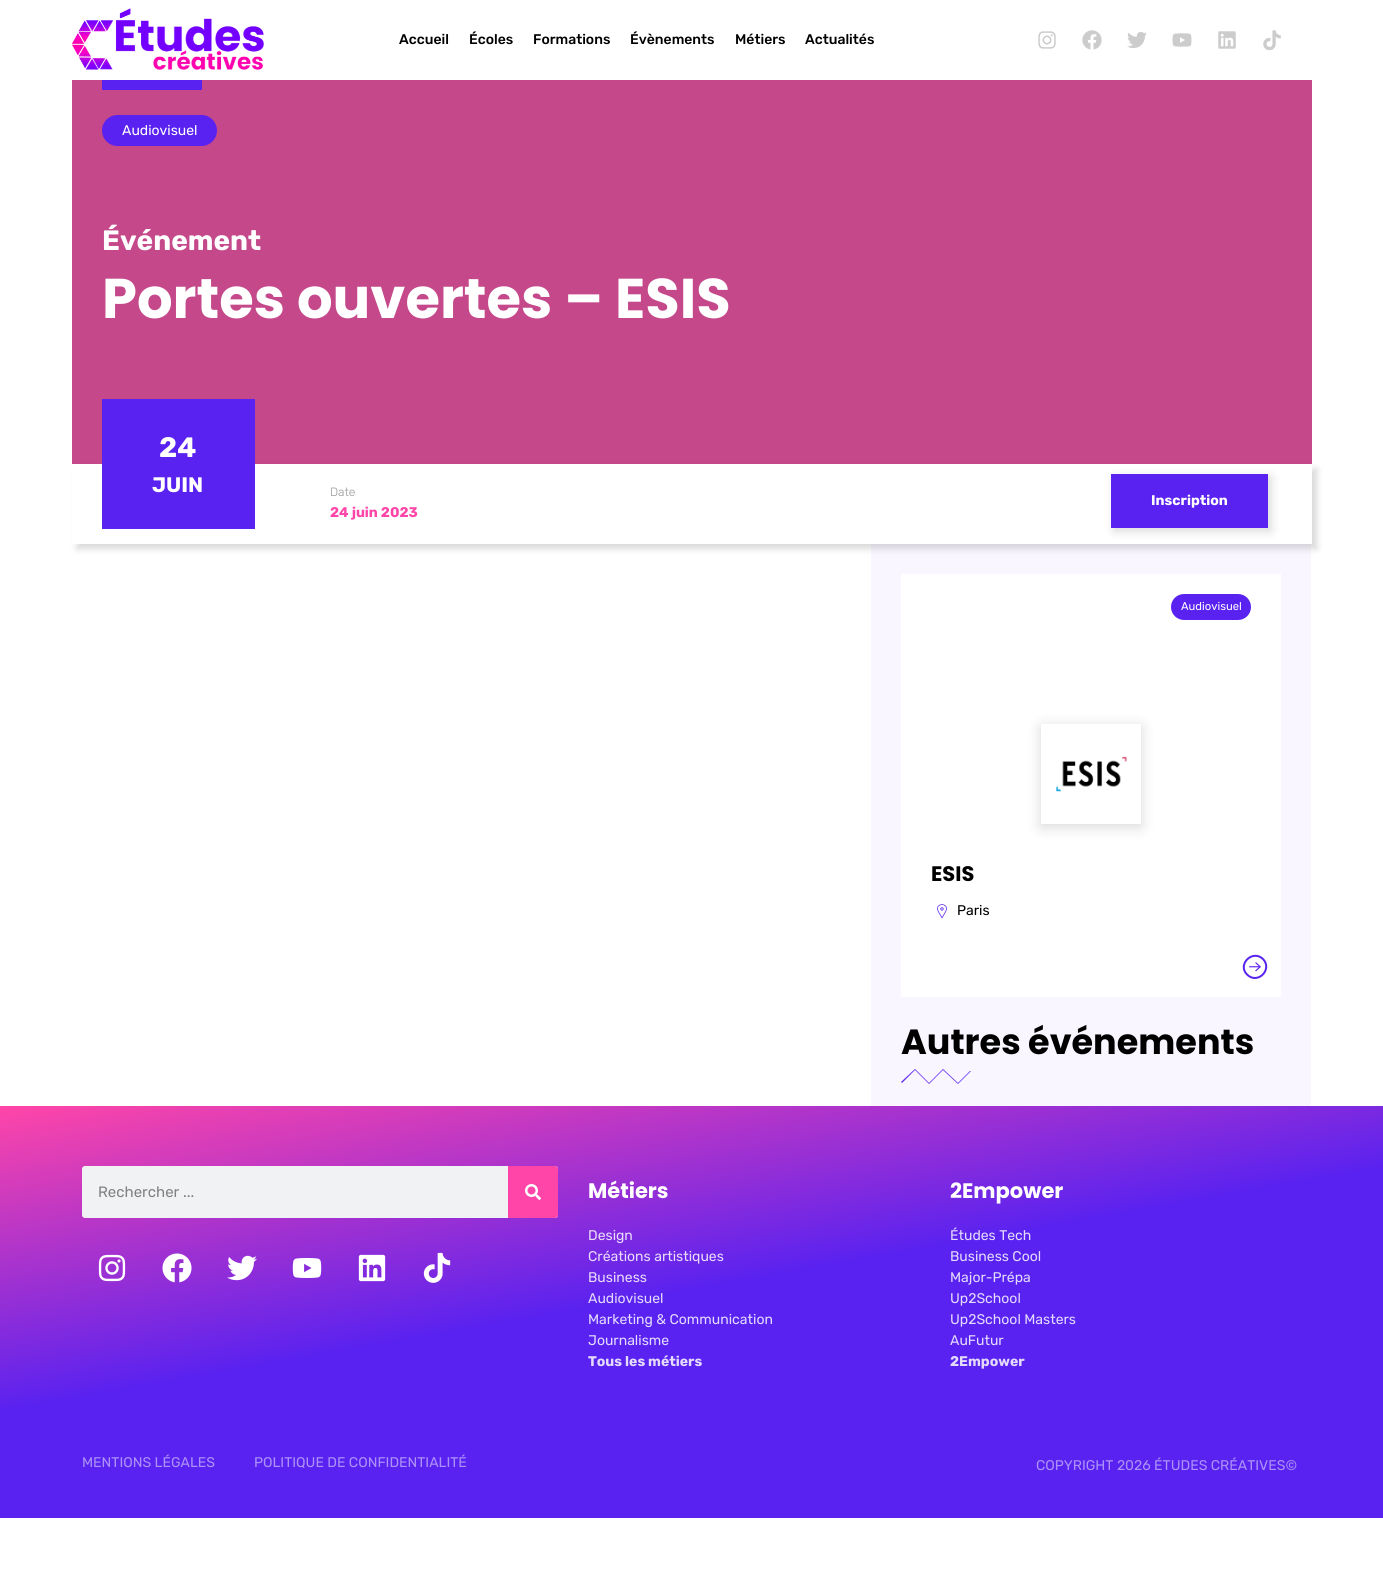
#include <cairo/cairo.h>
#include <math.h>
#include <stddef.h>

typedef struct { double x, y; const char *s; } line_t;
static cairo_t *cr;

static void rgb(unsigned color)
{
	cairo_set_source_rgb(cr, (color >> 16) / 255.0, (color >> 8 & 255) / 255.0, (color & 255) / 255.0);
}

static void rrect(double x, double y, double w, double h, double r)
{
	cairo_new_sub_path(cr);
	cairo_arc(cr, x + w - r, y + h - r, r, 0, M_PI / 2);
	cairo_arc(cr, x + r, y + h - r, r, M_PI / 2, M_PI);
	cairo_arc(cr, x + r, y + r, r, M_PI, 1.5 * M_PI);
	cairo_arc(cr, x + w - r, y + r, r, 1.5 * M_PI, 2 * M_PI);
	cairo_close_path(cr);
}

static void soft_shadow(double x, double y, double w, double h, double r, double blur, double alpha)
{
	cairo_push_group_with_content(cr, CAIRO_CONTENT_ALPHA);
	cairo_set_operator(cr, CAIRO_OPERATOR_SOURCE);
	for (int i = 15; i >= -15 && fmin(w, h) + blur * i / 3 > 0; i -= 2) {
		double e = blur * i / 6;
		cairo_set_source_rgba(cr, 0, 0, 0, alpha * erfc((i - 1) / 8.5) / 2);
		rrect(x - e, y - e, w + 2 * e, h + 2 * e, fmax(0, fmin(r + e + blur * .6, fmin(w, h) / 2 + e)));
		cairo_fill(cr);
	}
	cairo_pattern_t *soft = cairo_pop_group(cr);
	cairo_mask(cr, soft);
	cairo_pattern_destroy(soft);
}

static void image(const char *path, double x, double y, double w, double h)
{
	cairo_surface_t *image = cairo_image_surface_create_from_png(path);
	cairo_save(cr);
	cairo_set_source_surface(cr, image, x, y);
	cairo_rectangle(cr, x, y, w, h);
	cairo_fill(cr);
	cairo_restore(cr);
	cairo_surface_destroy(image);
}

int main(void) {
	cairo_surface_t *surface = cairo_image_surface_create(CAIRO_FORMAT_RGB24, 1383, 1594);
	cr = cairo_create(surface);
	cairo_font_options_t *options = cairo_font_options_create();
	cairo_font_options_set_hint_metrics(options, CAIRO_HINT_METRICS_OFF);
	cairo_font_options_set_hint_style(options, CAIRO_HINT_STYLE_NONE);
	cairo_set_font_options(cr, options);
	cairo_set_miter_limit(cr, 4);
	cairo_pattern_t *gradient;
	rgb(0xffffff);
	cairo_paint(cr);
	image("img/1.png", 72, 8, 193, 62);
	image("img/2.png", 1038, 31, 18, 18);
	image("img/3.png", 1082, 30, 20, 20);
	image("img/4.png", 1127, 31, 20, 18);
	image("img/5.png", 1172, 33, 20, 14);
	image("img/6.png", 1218, 31, 18, 18);
	image("img/7.png", 1263, 30, 18, 21);
	rgb(0xc4488a);
	cairo_rectangle(cr, 72, 80, 1240, 384);
	cairo_fill(cr);
	rgb(0x5922f0);
	cairo_rectangle(cr, 102, 80, 100, 10);
	cairo_fill(cr);
	rrect(102, 115, 115, 31, 15.5);
	cairo_fill(cr);
	rgb(0xfaf6ff);
	cairo_rectangle(cr, 871, 544, 440, 562);
	cairo_fill(cr);
	cairo_save(cr);
	cairo_set_fill_rule(cr, CAIRO_FILL_RULE_EVEN_ODD);
	cairo_new_path(cr);
	cairo_move_to(cr, 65, 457);
	cairo_line_to(cr, 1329, 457);
	cairo_line_to(cr, 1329, 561);
	cairo_line_to(cr, 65, 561);
	cairo_close_path(cr);
	cairo_move_to(cr, 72, 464);
	cairo_line_to(cr, 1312, 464);
	cairo_line_to(cr, 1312, 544);
	cairo_line_to(cr, 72, 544);
	cairo_close_path(cr);
	cairo_clip(cr);
	rgb(0x000000);
	soft_shadow(77, 469, 1240, 80, 0, 3.5, 0.15);
	cairo_restore(cr);
	rgb(0x5922f0);
	cairo_rectangle(cr, 102, 399, 153, 130);
	cairo_fill(cr);
	rgb(0x000000);
	soft_shadow(1114, 477, 157, 54, 0, 5, 0.15);
	rgb(0x5922f0);
	cairo_rectangle(cr, 1111, 474, 157, 54);
	cairo_fill(cr);
	rgb(0xffffff);
	cairo_rectangle(cr, 901, 574, 380, 423);
	cairo_fill(cr);
	rgb(0x5922f0);
	rrect(1171, 594, 80, 26, 13);
	cairo_fill(cr);
	cairo_save(cr);
	cairo_set_fill_rule(cr, CAIRO_FILL_RULE_EVEN_ODD);
	cairo_new_path(cr);
	cairo_move_to(cr, 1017, 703);
	cairo_line_to(cr, 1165, 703);
	cairo_line_to(cr, 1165, 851);
	cairo_line_to(cr, 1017, 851);
	cairo_close_path(cr);
	cairo_move_to(cr, 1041, 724);
	cairo_line_to(cr, 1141, 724);
	cairo_line_to(cr, 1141, 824);
	cairo_line_to(cr, 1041, 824);
	cairo_close_path(cr);
	cairo_clip(cr);
	rgb(0x000000);
	soft_shadow(1041, 727, 100, 100, 0, 7.5, 0.15);
	cairo_restore(cr);
	image("img/8.png", 1056, 756, 71, 36);
	image("img/9.png", 937, 904, 10, 15);
	image("img/10.png", 1249, 962, 12, 10);
	cairo_new_path(cr);
	cairo_move_to(cr, 1263, 959);
	cairo_curve_to(cr, 1273, 969.5, 1257.5, 985, 1247, 974.5);
	cairo_curve_to(cr, 1237, 964.5, 1252.5, 949, 1263, 959);
	cairo_close_path(cr);
	cairo_stroke(cr);
	cairo_new_path(cr);
	cairo_move_to(cr, 958, 1084);
	cairo_line_to(cr, 943, 1070);
	cairo_line_to(cr, 929, 1084);
	cairo_line_to(cr, 915, 1070);
	cairo_line_to(cr, 902, 1083);
	cairo_line_to(cr, 901, 1082);
	cairo_line_to(cr, 915, 1069);
	cairo_line_to(cr, 929, 1083);
	cairo_line_to(cr, 943, 1069);
	cairo_line_to(cr, 958, 1083);
	cairo_line_to(cr, 970, 1071);
	cairo_line_to(cr, 971, 1071);
	cairo_close_path(cr);
	cairo_fill(cr);
	gradient = cairo_pattern_create_linear(642, 993, 741, 1555);
	cairo_pattern_add_color_stop_rgba(gradient, 0, 1, 0.271, 0.659, 1);
	cairo_pattern_add_color_stop_rgba(gradient, 0.53, 0.349, 0.133, 0.941, 1);
	cairo_set_source(cr, gradient);
	cairo_pattern_destroy(gradient);
	cairo_rectangle(cr, 0, 1106, 1383, 336);
	cairo_fill(cr);
	rgb(0xf1f2f3);
	rrect(82, 1166, 476, 52, 3);
	cairo_fill(cr);
	rgb(0xff45a8);
	cairo_new_path(cr);
	cairo_move_to(cr, 508, 1166);
	cairo_line_to(cr, 555, 1166);
	cairo_curve_to(cr, 556.5, 1166, 558, 1167.5, 558, 1169);
	cairo_line_to(cr, 558, 1215);
	cairo_curve_to(cr, 558, 1216.5, 556.5, 1218, 555, 1218);
	cairo_line_to(cr, 508, 1218);
	cairo_close_path(cr);
	cairo_fill(cr);
	image("img/11.png", 525, 1184, 16, 16);
	image("img/12.png", 98, 1254, 28, 28);
	image("img/13.png", 162, 1253, 30, 30);
	image("img/14.png", 227, 1255, 30, 26);
	image("img/15.png", 292, 1258, 30, 20);
	image("img/16.png", 358, 1254, 28, 28);
	image("img/17.png", 423, 1252, 28, 31);
	rgb(0x5922f0);
	cairo_rectangle(cr, 0, 1442, 1383, 76);
	cairo_fill(cr);
	cairo_select_font_face(cr, "Rubik Medium", CAIRO_FONT_SLANT_NORMAL, CAIRO_FONT_WEIGHT_NORMAL);
	cairo_set_font_size(cr, 14);
	rgb(0x000000);
	{
		static const line_t items[] = {
			{399, 44, "Accueil"},
			{469, 44, "Écoles"},
			{533, 44, "Formations"},
			{630, 44, "Évènements"},
			{735, 44, "Métiers"},
			{805, 44, "Actualités"},
		};
		for (size_t i = 0; i < sizeof items / sizeof *items; i++) {
			cairo_move_to(cr, items[i].x, items[i].y);
			cairo_show_text(cr, items[i].s);
		}
	}
	cairo_select_font_face(cr, "Rubik", CAIRO_FONT_SLANT_NORMAL, CAIRO_FONT_WEIGHT_NORMAL);
	rgb(0xffffff);
	cairo_move_to(cr, 122, 135);
	cairo_show_text(cr, "Audiovisuel");
	cairo_select_font_face(cr, "Rubik", CAIRO_FONT_SLANT_NORMAL, CAIRO_FONT_WEIGHT_BOLD);
	cairo_set_font_size(cr, 28);
	cairo_move_to(cr, 102, 250);
	cairo_show_text(cr, "Événement");
	cairo_select_font_face(cr, "Poppins", CAIRO_FONT_SLANT_NORMAL, CAIRO_FONT_WEIGHT_BOLD);
	cairo_set_font_size(cr, 56);
	cairo_move_to(cr, 102, 318);
	cairo_show_text(cr, "Portes ouvertes – ESIS");
	cairo_select_font_face(cr, "Rubik", CAIRO_FONT_SLANT_NORMAL, CAIRO_FONT_WEIGHT_BOLD);
	cairo_set_font_size(cr, 28);
	cairo_move_to(cr, 159, 457);
	cairo_show_text(cr, "24");
	cairo_set_font_size(cr, 21);
	cairo_move_to(cr, 152, 492);
	cairo_show_text(cr, "JUIN");
	cairo_select_font_face(cr, "Rubik Light", CAIRO_FONT_SLANT_NORMAL, CAIRO_FONT_WEIGHT_NORMAL);
	cairo_set_font_size(cr, 12);
	rgb(0x999999);
	cairo_move_to(cr, 330, 496);
	cairo_show_text(cr, "Date");
	cairo_select_font_face(cr, "Rubik", CAIRO_FONT_SLANT_NORMAL, CAIRO_FONT_WEIGHT_BOLD);
	cairo_set_font_size(cr, 14);
	rgb(0xff45a8);
	cairo_move_to(cr, 330, 517);
	cairo_show_text(cr, "24 juin 2023");
	rgb(0xffffff);
	cairo_move_to(cr, 1151, 505);
	cairo_show_text(cr, "Inscription");
	cairo_select_font_face(cr, "Rubik", CAIRO_FONT_SLANT_NORMAL, CAIRO_FONT_WEIGHT_NORMAL);
	cairo_set_font_size(cr, 11.25);
	cairo_move_to(cr, 1181, 610);
	cairo_show_text(cr, "Audiovisuel");
	cairo_select_font_face(cr, "Poppins", CAIRO_FONT_SLANT_NORMAL, CAIRO_FONT_WEIGHT_BOLD);
	cairo_set_font_size(cr, 21);
	rgb(0x000000);
	cairo_move_to(cr, 931, 881);
	cairo_show_text(cr, "ESIS");
	cairo_select_font_face(cr, "Rubik", CAIRO_FONT_SLANT_NORMAL, CAIRO_FONT_WEIGHT_NORMAL);
	cairo_set_font_size(cr, 14);
	cairo_move_to(cr, 957, 915);
	cairo_show_text(cr, "Paris");
	cairo_select_font_face(cr, "Poppins", CAIRO_FONT_SLANT_NORMAL, CAIRO_FONT_WEIGHT_BOLD);
	cairo_set_font_size(cr, 35);
	cairo_move_to(cr, 901, 1054);
	cairo_show_text(cr, "Autres événements");
	cairo_select_font_face(cr, "Rubik", CAIRO_FONT_SLANT_NORMAL, CAIRO_FONT_WEIGHT_NORMAL);
	cairo_set_font_size(cr, 15);
	rgb(0x808181);
	cairo_move_to(cr, 98, 1197);
	cairo_show_text(cr, "Rechercher ...");
	cairo_select_font_face(cr, "Poppins", CAIRO_FONT_SLANT_NORMAL, CAIRO_FONT_WEIGHT_BOLD);
	cairo_set_font_size(cr, 21);
	rgb(0xffffff);
	cairo_move_to(cr, 588, 1198);
	cairo_show_text(cr, "Métiers");
	cairo_select_font_face(cr, "Rubik", CAIRO_FONT_SLANT_NORMAL, CAIRO_FONT_WEIGHT_NORMAL);
	cairo_set_font_size(cr, 14);
	rgb(0xe9dbfa);
	{
		static const line_t items[] = {
			{588, 1240, "Design"},
			{588, 1261, "Créations artistiques"},
			{588, 1282, "Business"},
		};
		for (size_t i = 0; i < sizeof items / sizeof *items; i++) {
			cairo_move_to(cr, items[i].x, items[i].y);
			cairo_show_text(cr, items[i].s);
		}
	}
	rgb(0xe3dafc);
	{
		static const line_t items[] = {
			{588, 1303, "Audiovisuel"},
			{588, 1324, "Marketing & Communication"},
			{588, 1345, "Journalisme"},
		};
		for (size_t i = 0; i < sizeof items / sizeof *items; i++) {
			cairo_move_to(cr, items[i].x, items[i].y);
			cairo_show_text(cr, items[i].s);
		}
	}
	cairo_select_font_face(cr, "Rubik", CAIRO_FONT_SLANT_NORMAL, CAIRO_FONT_WEIGHT_BOLD);
	cairo_move_to(cr, 588, 1366);
	cairo_show_text(cr, "Tous les métiers");
	cairo_select_font_face(cr, "Poppins", CAIRO_FONT_SLANT_NORMAL, CAIRO_FONT_WEIGHT_BOLD);
	cairo_set_font_size(cr, 21);
	rgb(0xffffff);
	cairo_move_to(cr, 950, 1198);
	cairo_show_text(cr, "2Empower");
	cairo_select_font_face(cr, "Rubik", CAIRO_FONT_SLANT_NORMAL, CAIRO_FONT_WEIGHT_NORMAL);
	cairo_set_font_size(cr, 14);
	rgb(0xe3dafc);
	{
		static const line_t items[] = {
			{950, 1240, "Études Tech"},
			{950, 1261, "Business Cool"},
			{950, 1282, "Major-Prépa"},
			{950, 1303, "Up2School"},
			{950, 1324, "Up2School Masters"},
			{950, 1345, "AuFutur"},
		};
		for (size_t i = 0; i < sizeof items / sizeof *items; i++) {
			cairo_move_to(cr, items[i].x, items[i].y);
			cairo_show_text(cr, items[i].s);
		}
	}
	cairo_select_font_face(cr, "Rubik", CAIRO_FONT_SLANT_NORMAL, CAIRO_FONT_WEIGHT_BOLD);
	cairo_move_to(cr, 950, 1366);
	cairo_show_text(cr, "2Empower");
	cairo_select_font_face(cr, "Rubik", CAIRO_FONT_SLANT_NORMAL, CAIRO_FONT_WEIGHT_NORMAL);
	rgb(0xac91f8);
	{
		static const line_t items[] = {
			{82, 1467, "MENTIONS LÉGALES"},
			{254, 1467, "POLITIQUE DE CONFIDENTIALITÉ"},
			{1036, 1470, "COPYRIGHT 2026 ÉTUDES CRÉATIVES©"},
		};
		for (size_t i = 0; i < sizeof items / sizeof *items; i++) {
			cairo_move_to(cr, items[i].x, items[i].y);
			cairo_show_text(cr, items[i].s);
		}
	}
	cairo_surface_write_to_png(surface, "page.png");
	cairo_font_options_destroy(options);
	cairo_destroy(cr);
	cairo_surface_destroy(surface);
	return 0;
}
